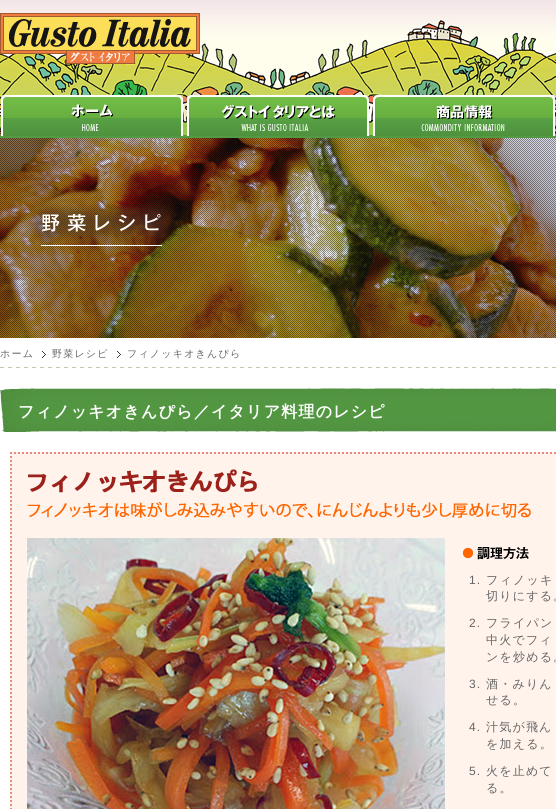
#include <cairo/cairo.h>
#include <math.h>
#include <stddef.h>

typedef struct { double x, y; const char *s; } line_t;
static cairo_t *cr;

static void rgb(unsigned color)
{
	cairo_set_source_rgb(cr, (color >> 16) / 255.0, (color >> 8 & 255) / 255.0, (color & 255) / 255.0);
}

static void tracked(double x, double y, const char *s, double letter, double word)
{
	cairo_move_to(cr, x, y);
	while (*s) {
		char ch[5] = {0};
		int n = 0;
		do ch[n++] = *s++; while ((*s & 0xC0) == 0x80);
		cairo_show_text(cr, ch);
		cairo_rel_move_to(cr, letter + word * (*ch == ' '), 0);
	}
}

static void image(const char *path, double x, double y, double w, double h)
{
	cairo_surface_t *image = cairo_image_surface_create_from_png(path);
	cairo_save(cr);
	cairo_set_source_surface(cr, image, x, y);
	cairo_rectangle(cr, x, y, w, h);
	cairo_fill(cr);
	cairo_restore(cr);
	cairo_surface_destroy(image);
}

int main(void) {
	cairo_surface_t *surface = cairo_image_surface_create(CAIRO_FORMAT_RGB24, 556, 809);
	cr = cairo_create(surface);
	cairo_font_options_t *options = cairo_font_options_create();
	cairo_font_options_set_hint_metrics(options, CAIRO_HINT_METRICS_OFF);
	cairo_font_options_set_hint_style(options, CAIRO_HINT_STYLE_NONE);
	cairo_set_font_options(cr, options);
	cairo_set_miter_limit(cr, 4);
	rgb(0xffffff);
	cairo_paint(cr);
	image("img/1.png", 0, 0, 556, 138);
	image("img/2.png", 0, 13, 200, 51);
	image("img/3.png", 1, 95, 182, 41);
	image("img/4.png", 187, 95, 182, 41);
	image("img/5.png", 373, 95, 182, 41);
	image("img/6.png", 0, 138, 556, 200);
	image("img/7.png", 0, 367, 556, 1);
	image("img/8.png", 42, 351, 4, 7);
	image("img/8.png", 117, 351, 4, 7);
	image("img/9.png", 0, 388, 556, 44);
	rgb(0xfff3ec);
	cairo_rectangle(cr, 10, 452, 546, 357);
	cairo_fill(cr);
	cairo_new_path(cr);
	cairo_move_to(cr, 10, 453);
	cairo_line_to(cr, 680, 453);
	rgb(0xea8984);
	cairo_set_dash(cr, (double[]){2, 2}, 2, 0);
	cairo_stroke(cr);
	cairo_new_path(cr);
	cairo_move_to(cr, 11, 452);
	cairo_line_to(cr, 11, 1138);
	cairo_stroke(cr);
	image("img/10.png", 27, 469, 504, 49);
	image("img/11.png", 27, 538, 418, 271);
	image("img/12.png", 463, 547, 66, 13);
	cairo_select_font_face(cr, "WenQuanYi Zen Hei Medium", CAIRO_FONT_SLANT_NORMAL, CAIRO_FONT_WEIGHT_NORMAL);
	cairo_set_font_size(cr, 10);
	rgb(0x666666);
	{
		static const line_t items[] = {
			{0, 357, "ホーム"},
			{52, 357, "野菜レシピ"},
			{127, 357, "フィノッキオきんぴら"},
		};
		for (size_t i = 0; i < sizeof items / sizeof *items; i++) {
			tracked(items[i].x, items[i].y, items[i].s, 1.2, 0);
		}
	}
	cairo_select_font_face(cr, "WenQuanYi Zen Hei", CAIRO_FONT_SLANT_NORMAL, CAIRO_FONT_WEIGHT_BOLD);
	cairo_set_font_size(cr, 16);
	rgb(0xffffff);
	tracked(18, 417, "フィノッキオきんぴら／イタリア料理のレシピ", 1.2, 0);
	cairo_select_font_face(cr, "Liberation Sans", CAIRO_FONT_SLANT_NORMAL, CAIRO_FONT_WEIGHT_NORMAL);
	cairo_set_font_size(cr, 12);
	rgb(0x666666);
	tracked(469, 584, "1.", 1.2, 0);
	cairo_select_font_face(cr, "WenQuanYi Zen Hei Medium", CAIRO_FONT_SLANT_NORMAL, CAIRO_FONT_WEIGHT_NORMAL);
	tracked(486, 584, "フィノッキ", 1.2, 0);
	tracked(486, 600, "切りにする。", 1.2, 0);
	cairo_select_font_face(cr, "Liberation Sans", CAIRO_FONT_SLANT_NORMAL, CAIRO_FONT_WEIGHT_NORMAL);
	tracked(469, 627, "2.", 1.2, 0);
	cairo_select_font_face(cr, "WenQuanYi Zen Hei Medium", CAIRO_FONT_SLANT_NORMAL, CAIRO_FONT_WEIGHT_NORMAL);
	{
		static const line_t items[] = {
			{486, 627, "フライパン"},
			{486, 644, "中火でフィ"},
			{486, 661, "ンを炒める。"},
		};
		for (size_t i = 0; i < sizeof items / sizeof *items; i++) {
			tracked(items[i].x, items[i].y, items[i].s, 1.2, 0);
		}
	}
	cairo_select_font_face(cr, "Liberation Sans", CAIRO_FONT_SLANT_NORMAL, CAIRO_FONT_WEIGHT_NORMAL);
	tracked(469, 688, "3.", 1.2, 0);
	cairo_select_font_face(cr, "WenQuanYi Zen Hei Medium", CAIRO_FONT_SLANT_NORMAL, CAIRO_FONT_WEIGHT_NORMAL);
	tracked(486, 688, "酒・みりん", 1.2, 0);
	tracked(486, 704, "せる。", 1.2, 0);
	cairo_select_font_face(cr, "Liberation Sans", CAIRO_FONT_SLANT_NORMAL, CAIRO_FONT_WEIGHT_NORMAL);
	tracked(469, 731, "4.", 1.2, 0);
	cairo_select_font_face(cr, "WenQuanYi Zen Hei Medium", CAIRO_FONT_SLANT_NORMAL, CAIRO_FONT_WEIGHT_NORMAL);
	tracked(486, 731, "汁気が飛ん", 1.2, 0);
	tracked(486, 748, "を加える。", 1.2, 0);
	cairo_select_font_face(cr, "Liberation Sans", CAIRO_FONT_SLANT_NORMAL, CAIRO_FONT_WEIGHT_NORMAL);
	tracked(469, 775, "5.", 1.2, 0);
	cairo_select_font_face(cr, "WenQuanYi Zen Hei Medium", CAIRO_FONT_SLANT_NORMAL, CAIRO_FONT_WEIGHT_NORMAL);
	tracked(486, 775, "火を止めて", 1.2, 0);
	tracked(486, 792, "る。", 1.2, 0);
	cairo_surface_write_to_png(surface, "page.png");
	cairo_font_options_destroy(options);
	cairo_destroy(cr);
	cairo_surface_destroy(surface);
	return 0;
}
